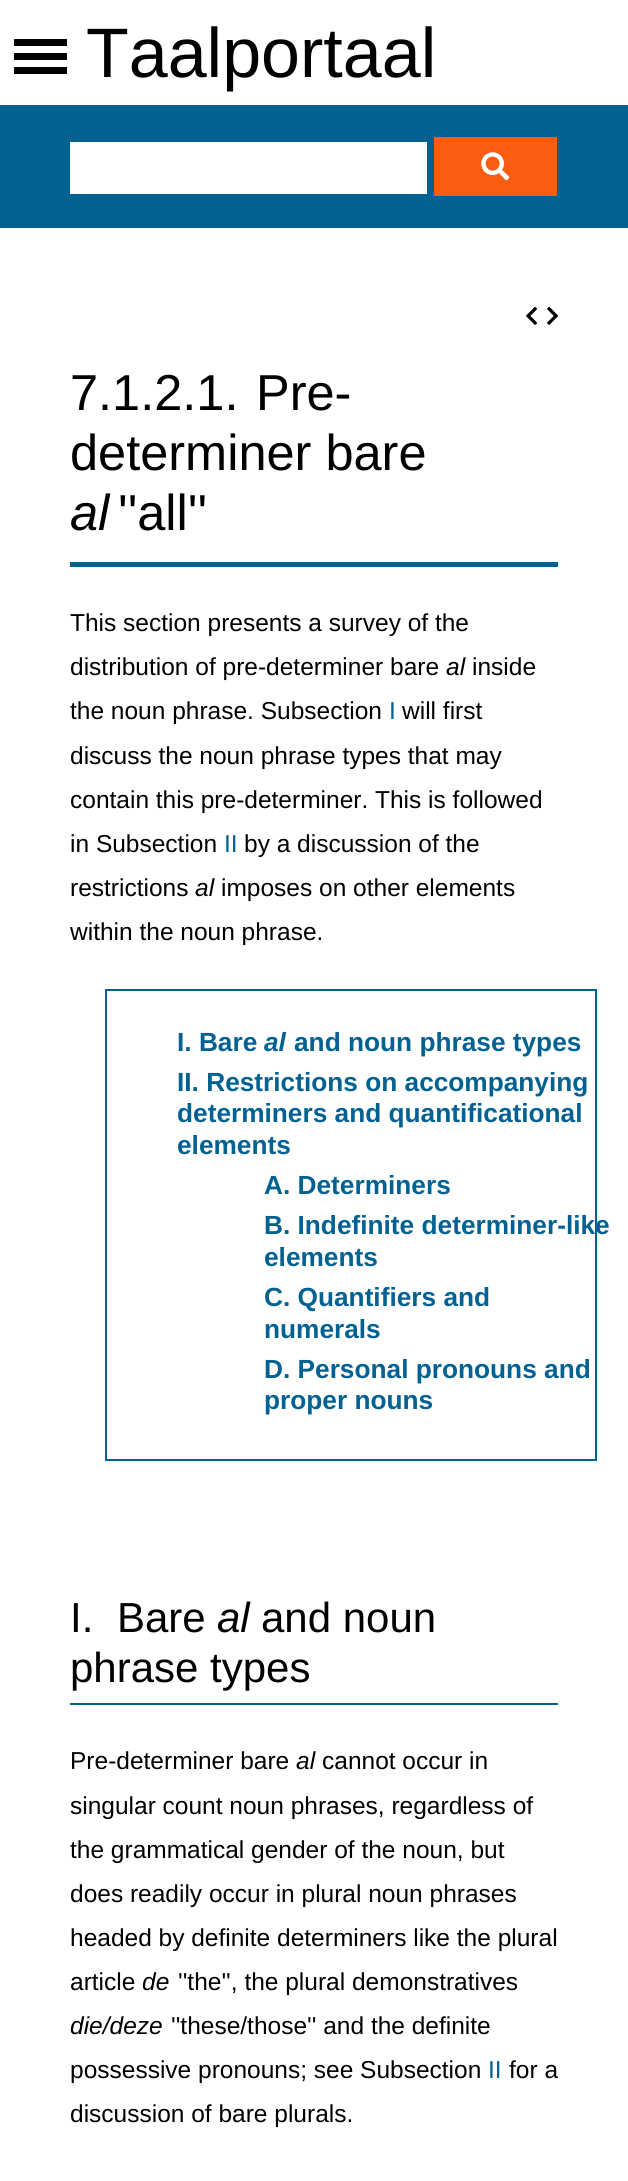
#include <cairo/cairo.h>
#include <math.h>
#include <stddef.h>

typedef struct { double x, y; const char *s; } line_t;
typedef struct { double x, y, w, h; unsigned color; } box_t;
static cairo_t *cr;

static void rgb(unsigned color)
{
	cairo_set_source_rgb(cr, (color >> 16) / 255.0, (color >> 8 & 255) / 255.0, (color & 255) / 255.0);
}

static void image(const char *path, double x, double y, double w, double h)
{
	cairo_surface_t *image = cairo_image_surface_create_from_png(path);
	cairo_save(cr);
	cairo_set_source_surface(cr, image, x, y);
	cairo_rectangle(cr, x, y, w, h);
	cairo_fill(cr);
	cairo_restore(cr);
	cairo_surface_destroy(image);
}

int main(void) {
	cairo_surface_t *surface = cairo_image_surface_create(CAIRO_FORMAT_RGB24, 628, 2181);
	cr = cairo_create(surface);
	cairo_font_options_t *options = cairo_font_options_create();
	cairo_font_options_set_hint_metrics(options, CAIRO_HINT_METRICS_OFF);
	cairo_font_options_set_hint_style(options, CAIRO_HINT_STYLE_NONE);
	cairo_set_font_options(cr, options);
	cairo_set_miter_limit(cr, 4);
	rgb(0xffffff);
	cairo_paint(cr);
	{
		static const box_t items[] = {
			{0, 105, 628, 123, 0x006192},
			{70, 142, 357, 52, 0xffffff},
			{434, 137, 123, 59, 0xf95d11},
		};
		for (size_t i = 0; i < sizeof items / sizeof *items; i++) {
			rgb(items[i].color);
			cairo_rectangle(cr, items[i].x, items[i].y, items[i].w, items[i].h);
			cairo_fill(cr);
		}
	}
	image("img/1.png", 481, 152, 29, 29);
	{
		static const box_t items[] = {
			{14, 53, 53, 7, 0x000000},
			{14, 39, 53, 7, 0x000000},
			{14, 67, 53, 7, 0x000000},
		};
		for (size_t i = 0; i < sizeof items / sizeof *items; i++) {
			rgb(items[i].color);
			cairo_rectangle(cr, items[i].x, items[i].y, items[i].w, items[i].h);
			cairo_fill(cr);
		}
	}
	image("img/2.png", 526, 307, 11, 18);
	image("img/3.png", 547, 307, 11, 18);
	rgb(0x006192);
	cairo_rectangle(cr, 70, 562, 488, 5);
	cairo_fill(cr);
	cairo_rectangle(cr, 106, 990, 490, 470);
	cairo_stroke(cr);
	cairo_rectangle(cr, 70, 1703, 488, 2);
	cairo_fill(cr);
	cairo_select_font_face(cr, "Liberation Sans", CAIRO_FONT_SLANT_NORMAL, CAIRO_FONT_WEIGHT_NORMAL);
	cairo_set_font_size(cr, 70);
	rgb(0x000000);
	cairo_move_to(cr, 86, 77);
	cairo_show_text(cr, "Taalportaal");
	cairo_set_font_size(cr, 50.5);
	{
		static const line_t items[] = {
			{70, 410, "7.1.2.1."},
			{256, 410, "Pre-"},
			{70, 470, "determiner bare"},
		};
		for (size_t i = 0; i < sizeof items / sizeof *items; i++) {
			cairo_move_to(cr, items[i].x, items[i].y);
			cairo_show_text(cr, items[i].s);
		}
	}
	cairo_select_font_face(cr, "Liberation Sans", CAIRO_FONT_SLANT_ITALIC, CAIRO_FONT_WEIGHT_NORMAL);
	cairo_move_to(cr, 70, 530);
	cairo_show_text(cr, "al");
	cairo_select_font_face(cr, "Liberation Sans", CAIRO_FONT_SLANT_NORMAL, CAIRO_FONT_WEIGHT_NORMAL);
	cairo_move_to(cr, 118, 530);
	cairo_show_text(cr, "''all''");
	cairo_set_font_size(cr, 24.5);
	cairo_move_to(cr, 70, 631);
	cairo_show_text(cr, "This section presents a survey of the");
	cairo_move_to(cr, 70, 675);
	cairo_show_text(cr, "distribution of pre-determiner bare");
	cairo_select_font_face(cr, "Liberation Sans", CAIRO_FONT_SLANT_ITALIC, CAIRO_FONT_WEIGHT_NORMAL);
	cairo_move_to(cr, 446, 675);
	cairo_show_text(cr, "al");
	cairo_select_font_face(cr, "Liberation Sans", CAIRO_FONT_SLANT_NORMAL, CAIRO_FONT_WEIGHT_NORMAL);
	cairo_move_to(cr, 472, 675);
	cairo_show_text(cr, "inside");
	cairo_move_to(cr, 70, 719);
	cairo_show_text(cr, "the noun phrase. Subsection");
	rgb(0x006192);
	cairo_move_to(cr, 389, 719);
	cairo_show_text(cr, "I");
	rgb(0x000000);
	{
		static const line_t items[] = {
			{402, 719, "will first"},
			{70, 764, "discuss the noun phrase types that may"},
			{70, 808, "contain this pre-determiner. This is followed"},
			{70, 852, "in Subsection"},
		};
		for (size_t i = 0; i < sizeof items / sizeof *items; i++) {
			cairo_move_to(cr, items[i].x, items[i].y);
			cairo_show_text(cr, items[i].s);
		}
	}
	rgb(0x006192);
	cairo_move_to(cr, 224, 852);
	cairo_show_text(cr, "II");
	rgb(0x000000);
	cairo_move_to(cr, 244, 852);
	cairo_show_text(cr, "by a discussion of the");
	cairo_move_to(cr, 70, 896);
	cairo_show_text(cr, "restrictions");
	cairo_select_font_face(cr, "Liberation Sans", CAIRO_FONT_SLANT_ITALIC, CAIRO_FONT_WEIGHT_NORMAL);
	cairo_move_to(cr, 195, 896);
	cairo_show_text(cr, "al");
	cairo_select_font_face(cr, "Liberation Sans", CAIRO_FONT_SLANT_NORMAL, CAIRO_FONT_WEIGHT_NORMAL);
	cairo_move_to(cr, 221, 896);
	cairo_show_text(cr, "imposes on other elements");
	cairo_move_to(cr, 70, 940);
	cairo_show_text(cr, "within the noun phrase.");
	cairo_select_font_face(cr, "Liberation Sans", CAIRO_FONT_SLANT_NORMAL, CAIRO_FONT_WEIGHT_BOLD);
	cairo_set_font_size(cr, 26.25);
	rgb(0x006192);
	cairo_move_to(cr, 177, 1051);
	cairo_show_text(cr, "I. Bare");
	cairo_select_font_face(cr, "Liberation Sans", CAIRO_FONT_SLANT_ITALIC, CAIRO_FONT_WEIGHT_BOLD);
	cairo_move_to(cr, 264, 1051);
	cairo_show_text(cr, "al");
	cairo_select_font_face(cr, "Liberation Sans", CAIRO_FONT_SLANT_NORMAL, CAIRO_FONT_WEIGHT_BOLD);
	{
		static const line_t items[] = {
			{294, 1051, "and noun phrase types"},
			{177, 1091, "II. Restrictions on accompanying"},
			{177, 1122, "determiners and quantificational"},
			{177, 1154, "elements"},
			{264, 1194, "A. Determiners"},
			{264, 1234, "B. Indefinite determiner-like"},
			{264, 1266, "elements"},
			{264, 1306, "C. Quantifiers and"},
			{264, 1338, "numerals"},
			{264, 1378, "D. Personal pronouns and"},
			{264, 1409, "proper nouns"},
		};
		for (size_t i = 0; i < sizeof items / sizeof *items; i++) {
			cairo_move_to(cr, items[i].x, items[i].y);
			cairo_show_text(cr, items[i].s);
		}
	}
	cairo_select_font_face(cr, "Liberation Sans", CAIRO_FONT_SLANT_NORMAL, CAIRO_FONT_WEIGHT_NORMAL);
	cairo_set_font_size(cr, 42);
	rgb(0x000000);
	cairo_move_to(cr, 70, 1632);
	cairo_show_text(cr, "I.");
	cairo_move_to(cr, 117, 1632);
	cairo_show_text(cr, "Bare");
	cairo_select_font_face(cr, "Liberation Sans", CAIRO_FONT_SLANT_ITALIC, CAIRO_FONT_WEIGHT_NORMAL);
	cairo_move_to(cr, 217, 1632);
	cairo_show_text(cr, "al");
	cairo_select_font_face(cr, "Liberation Sans", CAIRO_FONT_SLANT_NORMAL, CAIRO_FONT_WEIGHT_NORMAL);
	cairo_move_to(cr, 261, 1632);
	cairo_show_text(cr, "and noun");
	cairo_move_to(cr, 70, 1682);
	cairo_show_text(cr, "phrase types");
	cairo_set_font_size(cr, 24.5);
	cairo_move_to(cr, 70, 1769);
	cairo_show_text(cr, "Pre-determiner bare");
	cairo_select_font_face(cr, "Liberation Sans", CAIRO_FONT_SLANT_ITALIC, CAIRO_FONT_WEIGHT_NORMAL);
	cairo_move_to(cr, 296, 1769);
	cairo_show_text(cr, "al");
	cairo_select_font_face(cr, "Liberation Sans", CAIRO_FONT_SLANT_NORMAL, CAIRO_FONT_WEIGHT_NORMAL);
	{
		static const line_t items[] = {
			{322, 1769, "cannot occur in"},
			{70, 1814, "singular count noun phrases, regardless of"},
			{70, 1858, "the grammatical gender of the noun, but"},
			{70, 1902, "does readily occur in plural noun phrases"},
			{70, 1946, "headed by definite determiners like the plural"},
			{70, 1990, "article"},
		};
		for (size_t i = 0; i < sizeof items / sizeof *items; i++) {
			cairo_move_to(cr, items[i].x, items[i].y);
			cairo_show_text(cr, items[i].s);
		}
	}
	cairo_select_font_face(cr, "Liberation Sans", CAIRO_FONT_SLANT_ITALIC, CAIRO_FONT_WEIGHT_NORMAL);
	cairo_move_to(cr, 142, 1990);
	cairo_show_text(cr, "de");
	cairo_select_font_face(cr, "Liberation Sans", CAIRO_FONT_SLANT_NORMAL, CAIRO_FONT_WEIGHT_NORMAL);
	cairo_move_to(cr, 178, 1990);
	cairo_show_text(cr, "''the'', the plural demonstratives");
	cairo_select_font_face(cr, "Liberation Sans", CAIRO_FONT_SLANT_ITALIC, CAIRO_FONT_WEIGHT_NORMAL);
	cairo_move_to(cr, 70, 2034);
	cairo_show_text(cr, "die/deze");
	cairo_select_font_face(cr, "Liberation Sans", CAIRO_FONT_SLANT_NORMAL, CAIRO_FONT_WEIGHT_NORMAL);
	cairo_move_to(cr, 171, 2034);
	cairo_show_text(cr, "''these/those'' and the definite");
	cairo_move_to(cr, 70, 2078);
	cairo_show_text(cr, "possessive pronouns; see Subsection");
	rgb(0x006192);
	cairo_move_to(cr, 488, 2078);
	cairo_show_text(cr, "II");
	rgb(0x000000);
	cairo_move_to(cr, 509, 2078);
	cairo_show_text(cr, "for a");
	cairo_move_to(cr, 70, 2122);
	cairo_show_text(cr, "discussion of bare plurals.");
	cairo_surface_write_to_png(surface, "page.png");
	cairo_font_options_destroy(options);
	cairo_destroy(cr);
	cairo_surface_destroy(surface);
	return 0;
}
